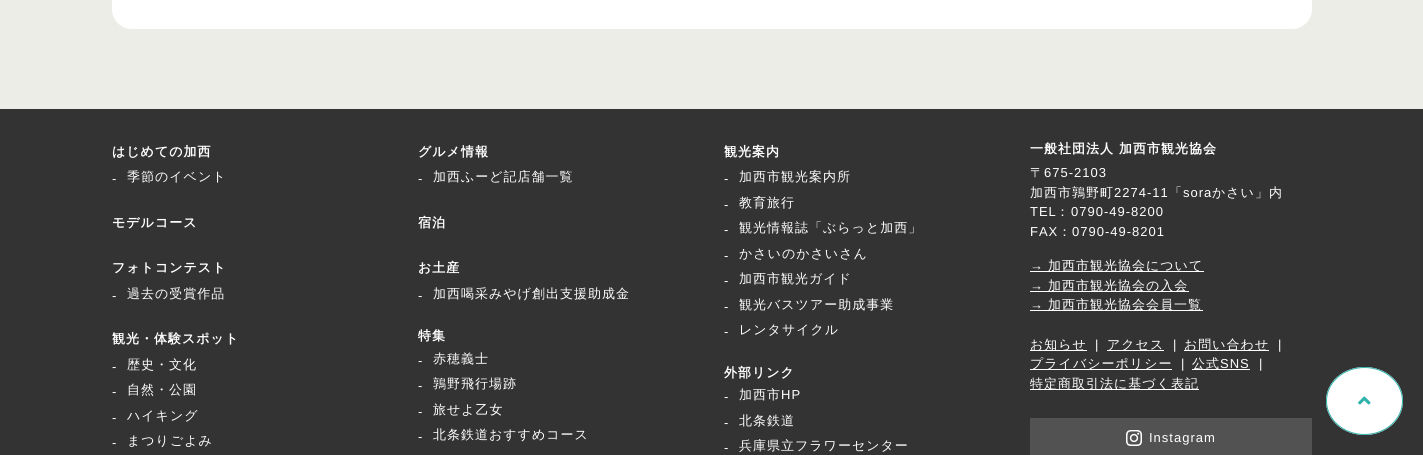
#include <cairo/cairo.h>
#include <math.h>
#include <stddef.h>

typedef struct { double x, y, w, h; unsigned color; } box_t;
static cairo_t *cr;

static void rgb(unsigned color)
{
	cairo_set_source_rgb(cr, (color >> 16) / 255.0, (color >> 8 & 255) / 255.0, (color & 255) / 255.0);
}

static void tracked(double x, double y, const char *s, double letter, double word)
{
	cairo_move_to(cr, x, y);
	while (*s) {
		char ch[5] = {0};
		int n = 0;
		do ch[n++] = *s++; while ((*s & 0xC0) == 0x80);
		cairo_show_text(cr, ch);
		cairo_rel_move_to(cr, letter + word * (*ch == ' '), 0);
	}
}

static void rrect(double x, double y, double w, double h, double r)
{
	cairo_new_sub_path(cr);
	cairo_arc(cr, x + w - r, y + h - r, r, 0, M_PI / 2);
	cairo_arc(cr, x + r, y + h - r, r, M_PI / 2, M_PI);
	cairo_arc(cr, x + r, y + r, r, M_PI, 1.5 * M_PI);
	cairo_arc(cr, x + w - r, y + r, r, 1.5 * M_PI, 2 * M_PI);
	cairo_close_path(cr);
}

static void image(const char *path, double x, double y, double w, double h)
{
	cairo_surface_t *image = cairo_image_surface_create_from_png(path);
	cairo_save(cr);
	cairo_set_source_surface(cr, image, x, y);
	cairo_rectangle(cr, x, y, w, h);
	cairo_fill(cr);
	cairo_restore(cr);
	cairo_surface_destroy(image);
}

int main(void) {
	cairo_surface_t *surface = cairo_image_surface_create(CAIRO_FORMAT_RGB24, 1423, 455);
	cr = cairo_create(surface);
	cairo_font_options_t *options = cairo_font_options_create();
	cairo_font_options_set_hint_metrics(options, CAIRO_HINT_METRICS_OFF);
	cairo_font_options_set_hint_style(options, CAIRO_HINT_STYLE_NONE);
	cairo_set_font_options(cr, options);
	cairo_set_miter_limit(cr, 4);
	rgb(0xedede8);
	cairo_paint(cr);
	rgb(0xffffff);
	rrect(112, -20, 1200, 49, 20);
	cairo_fill(cr);
	{
		static const box_t items[] = {
			{0, 109, 1423, 346, 0x333333},
			{1030, 271, 174, 1, 0xffffff},
			{1030, 291, 159, 1, 0xffffff},
			{1030, 310, 173, 1, 0xffffff},
			{1030, 350, 57, 1, 0xffffff},
			{1107, 350, 57, 1, 0xffffff},
			{1184, 350, 85, 1, 0xffffff},
			{1030, 369, 142, 1, 0xffffff},
			{1192, 369, 58, 1, 0xffffff},
			{1030, 389, 169, 1, 0xffffff},
			{1030, 418, 282, 37, 0x525252},
		};
		for (size_t i = 0; i < sizeof items / sizeof *items; i++) {
			rgb(items[i].color);
			cairo_rectangle(cr, items[i].x, items[i].y, items[i].w, items[i].h);
			cairo_fill(cr);
		}
	}
	image("img/1.png", 1126, 430, 16, 16);
	rgb(0xffffff);
	cairo_new_path(cr);
	cairo_move_to(cr, 1364.5, 367);
	cairo_curve_to(cr, 1386, 367, 1403, 382, 1403, 401);
	cairo_curve_to(cr, 1403, 420, 1386, 435, 1364.5, 435);
	cairo_curve_to(cr, 1343, 435, 1326, 420, 1326, 401);
	cairo_curve_to(cr, 1326, 382, 1343, 367, 1364.5, 367);
	cairo_close_path(cr);
	cairo_fill(cr);
	cairo_new_path(cr);
	cairo_move_to(cr, 1364.5, 367.5);
	cairo_curve_to(cr, 1385.5, 367.5, 1402.5, 382.5, 1402.5, 401);
	cairo_curve_to(cr, 1402.5, 419.5, 1385.5, 434.5, 1364.5, 434.5);
	cairo_curve_to(cr, 1343.5, 434.5, 1326.5, 419.5, 1326.5, 401);
	cairo_curve_to(cr, 1326.5, 382.5, 1343.5, 367.5, 1364.5, 367.5);
	cairo_close_path(cr);
	rgb(0x30b2ac);
	cairo_set_line_width(cr, 1);
	cairo_stroke(cr);
	image("img/2.png", 1358, 396, 13, 9);
	cairo_select_font_face(cr, "WenQuanYi Zen Hei", CAIRO_FONT_SLANT_NORMAL, CAIRO_FONT_WEIGHT_BOLD);
	cairo_set_font_size(cr, 13);
	rgb(0xffffff);
	tracked(112, 156, "はじめての加西", 1, 0);
	cairo_select_font_face(cr, "Liberation Sans", CAIRO_FONT_SLANT_NORMAL, CAIRO_FONT_WEIGHT_NORMAL);
	tracked(112, 183, "-", 1, 0);
	cairo_select_font_face(cr, "WenQuanYi Zen Hei Medium", CAIRO_FONT_SLANT_NORMAL, CAIRO_FONT_WEIGHT_NORMAL);
	tracked(127, 181, "季節のイベント", 1, 0);
	cairo_select_font_face(cr, "WenQuanYi Zen Hei", CAIRO_FONT_SLANT_NORMAL, CAIRO_FONT_WEIGHT_BOLD);
	tracked(112, 227, "モデルコース", 1, 0);
	tracked(112, 272, "フォトコンテスト", 1, 0);
	cairo_select_font_face(cr, "Liberation Sans", CAIRO_FONT_SLANT_NORMAL, CAIRO_FONT_WEIGHT_NORMAL);
	tracked(112, 300, "-", 1, 0);
	cairo_select_font_face(cr, "WenQuanYi Zen Hei Medium", CAIRO_FONT_SLANT_NORMAL, CAIRO_FONT_WEIGHT_NORMAL);
	tracked(127, 298, "過去の受賞作品", 1, 0);
	cairo_select_font_face(cr, "WenQuanYi Zen Hei", CAIRO_FONT_SLANT_NORMAL, CAIRO_FONT_WEIGHT_BOLD);
	tracked(112, 343, "観光・体験スポット", 1, 0);
	cairo_select_font_face(cr, "Liberation Sans", CAIRO_FONT_SLANT_NORMAL, CAIRO_FONT_WEIGHT_NORMAL);
	tracked(112, 371, "-", 1, 0);
	cairo_select_font_face(cr, "WenQuanYi Zen Hei Medium", CAIRO_FONT_SLANT_NORMAL, CAIRO_FONT_WEIGHT_NORMAL);
	tracked(127, 369, "歴史・文化", 1, 0);
	cairo_select_font_face(cr, "Liberation Sans", CAIRO_FONT_SLANT_NORMAL, CAIRO_FONT_WEIGHT_NORMAL);
	tracked(112, 396, "-", 1, 0);
	cairo_select_font_face(cr, "WenQuanYi Zen Hei Medium", CAIRO_FONT_SLANT_NORMAL, CAIRO_FONT_WEIGHT_NORMAL);
	tracked(127, 394, "自然・公園", 1, 0);
	cairo_select_font_face(cr, "Liberation Sans", CAIRO_FONT_SLANT_NORMAL, CAIRO_FONT_WEIGHT_NORMAL);
	tracked(112, 422, "-", 1, 0);
	cairo_select_font_face(cr, "WenQuanYi Zen Hei Medium", CAIRO_FONT_SLANT_NORMAL, CAIRO_FONT_WEIGHT_NORMAL);
	tracked(127, 420, "ハイキング", 1, 0);
	cairo_select_font_face(cr, "Liberation Sans", CAIRO_FONT_SLANT_NORMAL, CAIRO_FONT_WEIGHT_NORMAL);
	tracked(112, 447, "-", 1, 0);
	cairo_select_font_face(cr, "WenQuanYi Zen Hei Medium", CAIRO_FONT_SLANT_NORMAL, CAIRO_FONT_WEIGHT_NORMAL);
	tracked(127, 445, "まつりごよみ", 1, 0);
	cairo_select_font_face(cr, "WenQuanYi Zen Hei", CAIRO_FONT_SLANT_NORMAL, CAIRO_FONT_WEIGHT_BOLD);
	tracked(418, 156, "グルメ情報", 1, 0);
	cairo_select_font_face(cr, "Liberation Sans", CAIRO_FONT_SLANT_NORMAL, CAIRO_FONT_WEIGHT_NORMAL);
	tracked(418, 183, "-", 1, 0);
	cairo_select_font_face(cr, "WenQuanYi Zen Hei Medium", CAIRO_FONT_SLANT_NORMAL, CAIRO_FONT_WEIGHT_NORMAL);
	tracked(433, 181, "加西ふーど記店舗一覧", 1, 0);
	cairo_select_font_face(cr, "WenQuanYi Zen Hei", CAIRO_FONT_SLANT_NORMAL, CAIRO_FONT_WEIGHT_BOLD);
	tracked(418, 227, "宿泊", 1, 0);
	tracked(418, 272, "お土産", 1, 0);
	cairo_select_font_face(cr, "Liberation Sans", CAIRO_FONT_SLANT_NORMAL, CAIRO_FONT_WEIGHT_NORMAL);
	tracked(418, 300, "-", 1, 0);
	cairo_select_font_face(cr, "WenQuanYi Zen Hei Medium", CAIRO_FONT_SLANT_NORMAL, CAIRO_FONT_WEIGHT_NORMAL);
	tracked(433, 298, "加西喝采みやげ創出支援助成金", 1, 0);
	cairo_select_font_face(cr, "WenQuanYi Zen Hei", CAIRO_FONT_SLANT_NORMAL, CAIRO_FONT_WEIGHT_BOLD);
	tracked(418, 340, "特集", 1, 0);
	cairo_select_font_face(cr, "Liberation Sans", CAIRO_FONT_SLANT_NORMAL, CAIRO_FONT_WEIGHT_NORMAL);
	tracked(418, 365, "-", 1, 0);
	cairo_select_font_face(cr, "WenQuanYi Zen Hei Medium", CAIRO_FONT_SLANT_NORMAL, CAIRO_FONT_WEIGHT_NORMAL);
	tracked(433, 363, "赤穂義士", 1, 0);
	cairo_select_font_face(cr, "Liberation Sans", CAIRO_FONT_SLANT_NORMAL, CAIRO_FONT_WEIGHT_NORMAL);
	tracked(418, 390, "-", 1, 0);
	cairo_select_font_face(cr, "WenQuanYi Zen Hei Medium", CAIRO_FONT_SLANT_NORMAL, CAIRO_FONT_WEIGHT_NORMAL);
	tracked(433, 388, "鶉野飛行場跡", 1, 0);
	cairo_select_font_face(cr, "Liberation Sans", CAIRO_FONT_SLANT_NORMAL, CAIRO_FONT_WEIGHT_NORMAL);
	tracked(418, 416, "-", 1, 0);
	cairo_select_font_face(cr, "WenQuanYi Zen Hei Medium", CAIRO_FONT_SLANT_NORMAL, CAIRO_FONT_WEIGHT_NORMAL);
	tracked(433, 414, "旅せよ乙女", 1, 0);
	cairo_select_font_face(cr, "Liberation Sans", CAIRO_FONT_SLANT_NORMAL, CAIRO_FONT_WEIGHT_NORMAL);
	tracked(418, 441, "-", 1, 0);
	cairo_select_font_face(cr, "WenQuanYi Zen Hei Medium", CAIRO_FONT_SLANT_NORMAL, CAIRO_FONT_WEIGHT_NORMAL);
	tracked(433, 439, "北条鉄道おすすめコース", 1, 0);
	cairo_select_font_face(cr, "WenQuanYi Zen Hei", CAIRO_FONT_SLANT_NORMAL, CAIRO_FONT_WEIGHT_BOLD);
	tracked(724, 156, "観光案内", 1, 0);
	cairo_select_font_face(cr, "Liberation Sans", CAIRO_FONT_SLANT_NORMAL, CAIRO_FONT_WEIGHT_NORMAL);
	tracked(724, 183, "-", 1, 0);
	cairo_select_font_face(cr, "WenQuanYi Zen Hei Medium", CAIRO_FONT_SLANT_NORMAL, CAIRO_FONT_WEIGHT_NORMAL);
	tracked(739, 181, "加西市観光案内所", 1, 0);
	cairo_select_font_face(cr, "Liberation Sans", CAIRO_FONT_SLANT_NORMAL, CAIRO_FONT_WEIGHT_NORMAL);
	tracked(724, 209, "-", 1, 0);
	cairo_select_font_face(cr, "WenQuanYi Zen Hei Medium", CAIRO_FONT_SLANT_NORMAL, CAIRO_FONT_WEIGHT_NORMAL);
	tracked(739, 207, "教育旅行", 1, 0);
	cairo_select_font_face(cr, "Liberation Sans", CAIRO_FONT_SLANT_NORMAL, CAIRO_FONT_WEIGHT_NORMAL);
	tracked(724, 234, "-", 1, 0);
	cairo_select_font_face(cr, "WenQuanYi Zen Hei Medium", CAIRO_FONT_SLANT_NORMAL, CAIRO_FONT_WEIGHT_NORMAL);
	tracked(739, 232, "観光情報誌「ぶらっと加西」", 1, 0);
	cairo_select_font_face(cr, "Liberation Sans", CAIRO_FONT_SLANT_NORMAL, CAIRO_FONT_WEIGHT_NORMAL);
	tracked(724, 260, "-", 1, 0);
	cairo_select_font_face(cr, "WenQuanYi Zen Hei Medium", CAIRO_FONT_SLANT_NORMAL, CAIRO_FONT_WEIGHT_NORMAL);
	tracked(739, 258, "かさいのかさいさん", 1, 0);
	cairo_select_font_face(cr, "Liberation Sans", CAIRO_FONT_SLANT_NORMAL, CAIRO_FONT_WEIGHT_NORMAL);
	tracked(724, 285, "-", 1, 0);
	cairo_select_font_face(cr, "WenQuanYi Zen Hei Medium", CAIRO_FONT_SLANT_NORMAL, CAIRO_FONT_WEIGHT_NORMAL);
	tracked(739, 283, "加西市観光ガイド", 1, 0);
	cairo_select_font_face(cr, "Liberation Sans", CAIRO_FONT_SLANT_NORMAL, CAIRO_FONT_WEIGHT_NORMAL);
	tracked(724, 311, "-", 1, 0);
	cairo_select_font_face(cr, "WenQuanYi Zen Hei Medium", CAIRO_FONT_SLANT_NORMAL, CAIRO_FONT_WEIGHT_NORMAL);
	tracked(739, 309, "観光バスツアー助成事業", 1, 0);
	cairo_select_font_face(cr, "Liberation Sans", CAIRO_FONT_SLANT_NORMAL, CAIRO_FONT_WEIGHT_NORMAL);
	tracked(724, 336, "-", 1, 0);
	cairo_select_font_face(cr, "WenQuanYi Zen Hei Medium", CAIRO_FONT_SLANT_NORMAL, CAIRO_FONT_WEIGHT_NORMAL);
	tracked(739, 334, "レンタサイクル", 1, 0);
	cairo_select_font_face(cr, "WenQuanYi Zen Hei", CAIRO_FONT_SLANT_NORMAL, CAIRO_FONT_WEIGHT_BOLD);
	tracked(724, 377, "外部リンク", 1, 0);
	cairo_select_font_face(cr, "Liberation Sans", CAIRO_FONT_SLANT_NORMAL, CAIRO_FONT_WEIGHT_NORMAL);
	tracked(724, 401, "-", 1, 0);
	cairo_select_font_face(cr, "WenQuanYi Zen Hei Medium", CAIRO_FONT_SLANT_NORMAL, CAIRO_FONT_WEIGHT_NORMAL);
	tracked(739, 399, "加西市", 1, 0);
	cairo_select_font_face(cr, "Liberation Sans", CAIRO_FONT_SLANT_NORMAL, CAIRO_FONT_WEIGHT_NORMAL);
	tracked(781, 399, "HP", 1, 0);
	tracked(724, 427, "-", 1, 0);
	cairo_select_font_face(cr, "WenQuanYi Zen Hei Medium", CAIRO_FONT_SLANT_NORMAL, CAIRO_FONT_WEIGHT_NORMAL);
	tracked(739, 425, "北条鉄道", 1, 0);
	cairo_select_font_face(cr, "Liberation Sans", CAIRO_FONT_SLANT_NORMAL, CAIRO_FONT_WEIGHT_NORMAL);
	tracked(724, 452, "-", 1, 0);
	cairo_select_font_face(cr, "WenQuanYi Zen Hei Medium", CAIRO_FONT_SLANT_NORMAL, CAIRO_FONT_WEIGHT_NORMAL);
	tracked(739, 450, "兵庫県立フラワーセンター", 1, 0);
	cairo_select_font_face(cr, "WenQuanYi Zen Hei", CAIRO_FONT_SLANT_NORMAL, CAIRO_FONT_WEIGHT_BOLD);
	tracked(1030, 153, "一般社団法人 加西市観光協会", 1, 0);
	cairo_select_font_face(cr, "WenQuanYi Zen Hei Medium", CAIRO_FONT_SLANT_NORMAL, CAIRO_FONT_WEIGHT_NORMAL);
	tracked(1030, 177, "〒", 1, 0);
	cairo_select_font_face(cr, "Liberation Sans", CAIRO_FONT_SLANT_NORMAL, CAIRO_FONT_WEIGHT_NORMAL);
	tracked(1044, 177, "675-2103", 1, 0);
	cairo_select_font_face(cr, "WenQuanYi Zen Hei Medium", CAIRO_FONT_SLANT_NORMAL, CAIRO_FONT_WEIGHT_NORMAL);
	tracked(1030, 197, "加西市鶉野町", 1, 0);
	cairo_select_font_face(cr, "Liberation Sans", CAIRO_FONT_SLANT_NORMAL, CAIRO_FONT_WEIGHT_NORMAL);
	tracked(1114, 197, "2274-11", 1, 0);
	cairo_select_font_face(cr, "WenQuanYi Zen Hei Medium", CAIRO_FONT_SLANT_NORMAL, CAIRO_FONT_WEIGHT_NORMAL);
	tracked(1169, 197, "「", 1, 0);
	cairo_select_font_face(cr, "Liberation Sans", CAIRO_FONT_SLANT_NORMAL, CAIRO_FONT_WEIGHT_NORMAL);
	tracked(1183, 197, "sora", 1, 0);
	cairo_select_font_face(cr, "WenQuanYi Zen Hei Medium", CAIRO_FONT_SLANT_NORMAL, CAIRO_FONT_WEIGHT_NORMAL);
	tracked(1212, 197, "かさい」内", 1, 0);
	cairo_select_font_face(cr, "Liberation Sans", CAIRO_FONT_SLANT_NORMAL, CAIRO_FONT_WEIGHT_NORMAL);
	tracked(1030, 216, "TEL", 1, 0);
	cairo_select_font_face(cr, "WenQuanYi Zen Hei Medium", CAIRO_FONT_SLANT_NORMAL, CAIRO_FONT_WEIGHT_NORMAL);
	tracked(1056, 216, "：", 1, 0);
	cairo_select_font_face(cr, "Liberation Sans", CAIRO_FONT_SLANT_NORMAL, CAIRO_FONT_WEIGHT_NORMAL);
	tracked(1071, 216, "0790‐49‐8200", 1, 0);
	tracked(1030, 236, "FAX", 1, 0);
	cairo_select_font_face(cr, "WenQuanYi Zen Hei Medium", CAIRO_FONT_SLANT_NORMAL, CAIRO_FONT_WEIGHT_NORMAL);
	tracked(1058, 236, "：", 1, 0);
	cairo_select_font_face(cr, "Liberation Sans", CAIRO_FONT_SLANT_NORMAL, CAIRO_FONT_WEIGHT_NORMAL);
	tracked(1072, 236, "0790‐49‐8201", 1, 0);
	tracked(1030, 270, "→", 1, 0);
	cairo_select_font_face(cr, "WenQuanYi Zen Hei Medium", CAIRO_FONT_SLANT_NORMAL, CAIRO_FONT_WEIGHT_NORMAL);
	tracked(1048, 270, "加西市観光協会について", 1, 0);
	cairo_select_font_face(cr, "Liberation Sans", CAIRO_FONT_SLANT_NORMAL, CAIRO_FONT_WEIGHT_NORMAL);
	tracked(1030, 290, "→", 1, 0);
	cairo_select_font_face(cr, "WenQuanYi Zen Hei Medium", CAIRO_FONT_SLANT_NORMAL, CAIRO_FONT_WEIGHT_NORMAL);
	tracked(1048, 290, "加西市観光協会の入会", 1, 0);
	cairo_select_font_face(cr, "Liberation Sans", CAIRO_FONT_SLANT_NORMAL, CAIRO_FONT_WEIGHT_NORMAL);
	tracked(1030, 309, "→", 1, 0);
	cairo_select_font_face(cr, "WenQuanYi Zen Hei Medium", CAIRO_FONT_SLANT_NORMAL, CAIRO_FONT_WEIGHT_NORMAL);
	tracked(1048, 309, "加西市観光協会会員一覧", 1, 0);
	tracked(1030, 349, "お知らせ", 1, 0);
	cairo_select_font_face(cr, "Liberation Sans", CAIRO_FONT_SLANT_NORMAL, CAIRO_FONT_WEIGHT_NORMAL);
	tracked(1095, 349, "|", 1, 0);
	cairo_select_font_face(cr, "WenQuanYi Zen Hei Medium", CAIRO_FONT_SLANT_NORMAL, CAIRO_FONT_WEIGHT_NORMAL);
	tracked(1107, 349, "アクセス", 1, 0);
	cairo_select_font_face(cr, "Liberation Sans", CAIRO_FONT_SLANT_NORMAL, CAIRO_FONT_WEIGHT_NORMAL);
	tracked(1173, 349, "|", 1, 0);
	cairo_select_font_face(cr, "WenQuanYi Zen Hei Medium", CAIRO_FONT_SLANT_NORMAL, CAIRO_FONT_WEIGHT_NORMAL);
	tracked(1184, 349, "お問い合わせ", 1, 0);
	cairo_select_font_face(cr, "Liberation Sans", CAIRO_FONT_SLANT_NORMAL, CAIRO_FONT_WEIGHT_NORMAL);
	tracked(1278, 349, "|", 1, 0);
	cairo_select_font_face(cr, "WenQuanYi Zen Hei Medium", CAIRO_FONT_SLANT_NORMAL, CAIRO_FONT_WEIGHT_NORMAL);
	tracked(1030, 368, "プライバシーポリシー", 1, 0);
	cairo_select_font_face(cr, "Liberation Sans", CAIRO_FONT_SLANT_NORMAL, CAIRO_FONT_WEIGHT_NORMAL);
	tracked(1181, 368, "|", 1, 0);
	cairo_select_font_face(cr, "WenQuanYi Zen Hei Medium", CAIRO_FONT_SLANT_NORMAL, CAIRO_FONT_WEIGHT_NORMAL);
	tracked(1192, 368, "公式", 1, 0);
	cairo_select_font_face(cr, "Liberation Sans", CAIRO_FONT_SLANT_NORMAL, CAIRO_FONT_WEIGHT_NORMAL);
	tracked(1220, 368, "SNS", 1, 0);
	tracked(1259, 368, "|", 1, 0);
	cairo_select_font_face(cr, "WenQuanYi Zen Hei Medium", CAIRO_FONT_SLANT_NORMAL, CAIRO_FONT_WEIGHT_NORMAL);
	tracked(1030, 388, "特定商取引法に基づく表記", 1, 0);
	cairo_select_font_face(cr, "Liberation Sans", CAIRO_FONT_SLANT_NORMAL, CAIRO_FONT_WEIGHT_NORMAL);
	tracked(1149, 442, "Instagram", 1, 0);
	cairo_surface_write_to_png(surface, "page.png");
	cairo_font_options_destroy(options);
	cairo_destroy(cr);
	cairo_surface_destroy(surface);
	return 0;
}
